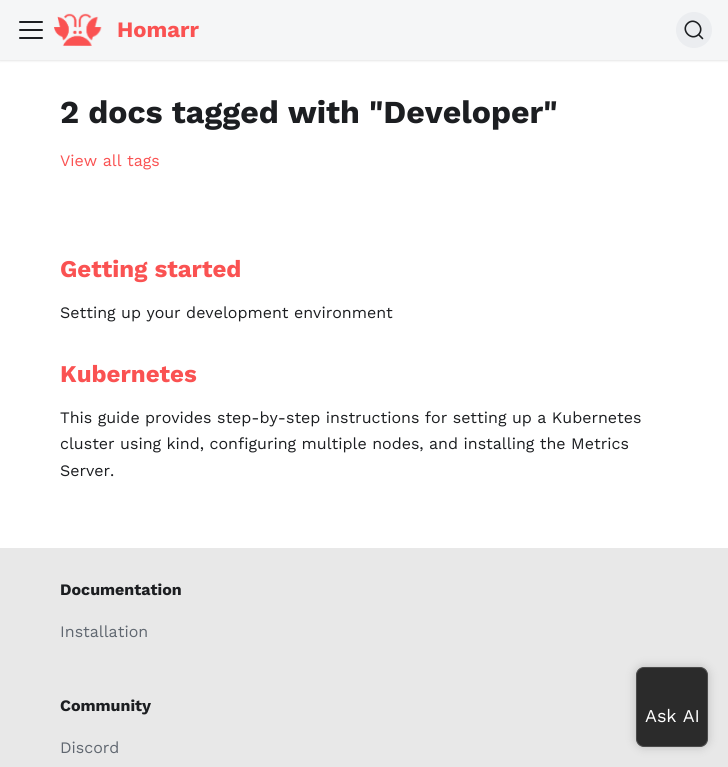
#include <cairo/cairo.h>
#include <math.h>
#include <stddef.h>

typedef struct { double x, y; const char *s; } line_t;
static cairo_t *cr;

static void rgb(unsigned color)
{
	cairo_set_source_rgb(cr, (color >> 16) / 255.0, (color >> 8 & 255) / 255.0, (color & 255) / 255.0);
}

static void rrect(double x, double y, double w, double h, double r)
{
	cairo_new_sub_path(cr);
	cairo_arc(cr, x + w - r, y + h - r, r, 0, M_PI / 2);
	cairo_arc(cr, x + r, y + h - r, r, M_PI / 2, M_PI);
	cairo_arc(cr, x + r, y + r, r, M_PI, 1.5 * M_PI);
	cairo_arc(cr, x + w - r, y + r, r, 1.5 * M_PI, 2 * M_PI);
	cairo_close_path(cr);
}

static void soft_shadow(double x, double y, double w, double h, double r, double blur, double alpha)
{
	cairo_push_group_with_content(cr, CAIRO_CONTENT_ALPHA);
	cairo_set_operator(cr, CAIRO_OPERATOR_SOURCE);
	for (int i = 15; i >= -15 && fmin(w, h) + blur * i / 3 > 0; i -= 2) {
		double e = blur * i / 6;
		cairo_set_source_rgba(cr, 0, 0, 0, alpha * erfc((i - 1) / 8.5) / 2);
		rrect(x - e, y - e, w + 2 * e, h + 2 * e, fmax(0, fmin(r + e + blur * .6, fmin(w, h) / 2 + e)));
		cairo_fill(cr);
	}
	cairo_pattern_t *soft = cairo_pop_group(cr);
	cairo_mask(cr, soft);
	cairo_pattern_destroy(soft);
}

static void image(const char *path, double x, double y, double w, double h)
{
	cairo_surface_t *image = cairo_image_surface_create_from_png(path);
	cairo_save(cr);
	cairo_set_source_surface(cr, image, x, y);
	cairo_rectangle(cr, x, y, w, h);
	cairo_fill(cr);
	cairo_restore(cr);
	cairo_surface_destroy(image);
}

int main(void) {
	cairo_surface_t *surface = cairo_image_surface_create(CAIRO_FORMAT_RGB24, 728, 767);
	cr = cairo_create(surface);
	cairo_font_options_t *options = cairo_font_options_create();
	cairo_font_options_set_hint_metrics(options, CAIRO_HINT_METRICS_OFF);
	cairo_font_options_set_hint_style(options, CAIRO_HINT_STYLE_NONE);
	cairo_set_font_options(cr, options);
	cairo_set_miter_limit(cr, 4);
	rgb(0xffffff);
	cairo_paint(cr);
	rgb(0x000000);
	soft_shadow(0, 1, 728, 60, 0, 1, 0.1);
	rgb(0xf5f6f7);
	cairo_rectangle(cr, 0, 0, 728, 60);
	cairo_fill(cr);
	image("img/1.png", 19, 21, 24, 18);
	image("img/2.png", 54, 13, 48, 33);
	rgb(0xebedf0);
	cairo_arc(cr, 694, 30, 18, 0, 2 * M_PI);
	cairo_fill(cr);
	cairo_new_path(cr);
	cairo_move_to(cr, 698.5, 34.5);
	cairo_line_to(cr, 702.5, 38.5);
	cairo_line_to(cr, 698.5, 34.5);
	cairo_curve_to(cr, 691.5, 41.5, 680.5, 30.5, 687.5, 23.5);
	cairo_curve_to(cr, 694.5, 16.5, 705.5, 27.5, 698.5, 34.5);
	cairo_close_path(cr);
	rgb(0x1c1e21);
	cairo_set_line_width(cr, 1.6);
	cairo_set_line_cap(cr, CAIRO_LINE_CAP_ROUND);
	cairo_set_line_join(cr, CAIRO_LINE_JOIN_ROUND);
	cairo_stroke(cr);
	rgb(0xe8e8e8);
	cairo_rectangle(cr, 0, 548, 728, 219);
	cairo_fill(cr);
	rgb(0x000000);
	soft_shadow(636, 667, 72, 80, 8, 5, 0.2);
	rgb(0x2b2b2b);
	rrect(636.5, 667.5, 71, 79, 7.5);
	cairo_fill_preserve(cr);
	rgb(0x4b4b4b);
	cairo_set_line_width(cr, 1);
	cairo_set_line_cap(cr, CAIRO_LINE_CAP_BUTT);
	cairo_set_line_join(cr, CAIRO_LINE_JOIN_MITER);
	cairo_stroke(cr);
	cairo_select_font_face(cr, "Work Sans", CAIRO_FONT_SLANT_NORMAL, CAIRO_FONT_WEIGHT_BOLD);
	cairo_set_font_size(cr, 22);
	rgb(0xfa5252);
	cairo_move_to(cr, 117, 37);
	cairo_show_text(cr, "Homarr");
	cairo_set_font_size(cr, 32);
	rgb(0x1c1e21);
	cairo_move_to(cr, 60, 123);
	cairo_show_text(cr, "2 docs tagged with \"Developer\"");
	cairo_select_font_face(cr, "Work Sans", CAIRO_FONT_SLANT_NORMAL, CAIRO_FONT_WEIGHT_NORMAL);
	cairo_set_font_size(cr, 16);
	rgb(0xfa5252);
	cairo_move_to(cr, 60, 166);
	cairo_show_text(cr, "View all tags");
	cairo_select_font_face(cr, "Work Sans", CAIRO_FONT_SLANT_NORMAL, CAIRO_FONT_WEIGHT_BOLD);
	cairo_set_font_size(cr, 24);
	cairo_move_to(cr, 60, 277);
	cairo_show_text(cr, "Getting started");
	cairo_select_font_face(cr, "Work Sans", CAIRO_FONT_SLANT_NORMAL, CAIRO_FONT_WEIGHT_NORMAL);
	cairo_set_font_size(cr, 16);
	rgb(0x1c1e21);
	cairo_move_to(cr, 60, 318);
	cairo_show_text(cr, "Setting up your development environment");
	cairo_select_font_face(cr, "Work Sans", CAIRO_FONT_SLANT_NORMAL, CAIRO_FONT_WEIGHT_BOLD);
	cairo_set_font_size(cr, 24);
	rgb(0xfa5252);
	cairo_move_to(cr, 60, 382);
	cairo_show_text(cr, "Kubernetes");
	cairo_select_font_face(cr, "Work Sans", CAIRO_FONT_SLANT_NORMAL, CAIRO_FONT_WEIGHT_NORMAL);
	cairo_set_font_size(cr, 16);
	rgb(0x1c1e21);
	{
		static const line_t items[] = {
			{60, 423, "This guide provides step-by-step instructions for setting up a Kubernetes"},
			{60, 449, "cluster using kind, configuring multiple nodes, and installing the Metrics"},
			{60, 476, "Server."},
		};
		for (size_t i = 0; i < sizeof items / sizeof *items; i++) {
			cairo_move_to(cr, items[i].x, items[i].y);
			cairo_show_text(cr, items[i].s);
		}
	}
	cairo_select_font_face(cr, "Work Sans", CAIRO_FONT_SLANT_NORMAL, CAIRO_FONT_WEIGHT_BOLD);
	cairo_move_to(cr, 60, 595);
	cairo_show_text(cr, "Documentation");
	cairo_select_font_face(cr, "Work Sans", CAIRO_FONT_SLANT_NORMAL, CAIRO_FONT_WEIGHT_NORMAL);
	rgb(0x606770);
	cairo_move_to(cr, 60, 637);
	cairo_show_text(cr, "Installation");
	cairo_select_font_face(cr, "Work Sans", CAIRO_FONT_SLANT_NORMAL, CAIRO_FONT_WEIGHT_BOLD);
	rgb(0x1c1e21);
	cairo_move_to(cr, 60, 711);
	cairo_show_text(cr, "Community");
	cairo_select_font_face(cr, "Work Sans", CAIRO_FONT_SLANT_NORMAL, CAIRO_FONT_WEIGHT_NORMAL);
	rgb(0x606770);
	cairo_move_to(cr, 60, 753);
	cairo_show_text(cr, "Discord");
	cairo_set_font_size(cr, 18);
	rgb(0xffffff);
	cairo_move_to(cr, 645, 722);
	cairo_show_text(cr, "Ask AI");
	cairo_surface_write_to_png(surface, "page.png");
	cairo_font_options_destroy(options);
	cairo_destroy(cr);
	cairo_surface_destroy(surface);
	return 0;
}
